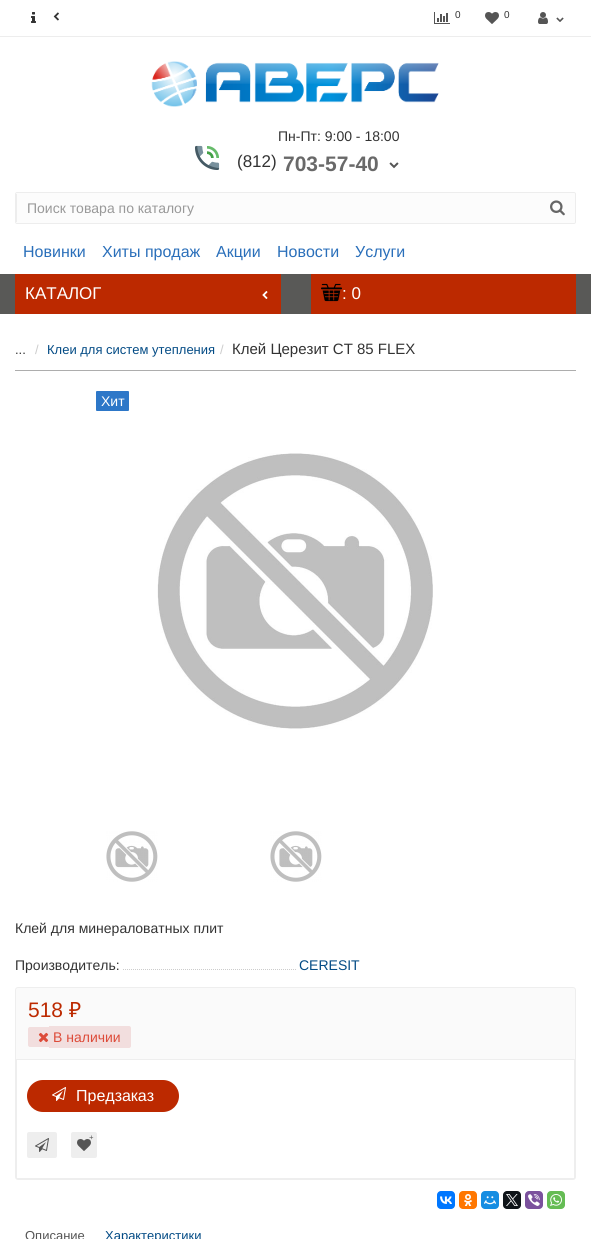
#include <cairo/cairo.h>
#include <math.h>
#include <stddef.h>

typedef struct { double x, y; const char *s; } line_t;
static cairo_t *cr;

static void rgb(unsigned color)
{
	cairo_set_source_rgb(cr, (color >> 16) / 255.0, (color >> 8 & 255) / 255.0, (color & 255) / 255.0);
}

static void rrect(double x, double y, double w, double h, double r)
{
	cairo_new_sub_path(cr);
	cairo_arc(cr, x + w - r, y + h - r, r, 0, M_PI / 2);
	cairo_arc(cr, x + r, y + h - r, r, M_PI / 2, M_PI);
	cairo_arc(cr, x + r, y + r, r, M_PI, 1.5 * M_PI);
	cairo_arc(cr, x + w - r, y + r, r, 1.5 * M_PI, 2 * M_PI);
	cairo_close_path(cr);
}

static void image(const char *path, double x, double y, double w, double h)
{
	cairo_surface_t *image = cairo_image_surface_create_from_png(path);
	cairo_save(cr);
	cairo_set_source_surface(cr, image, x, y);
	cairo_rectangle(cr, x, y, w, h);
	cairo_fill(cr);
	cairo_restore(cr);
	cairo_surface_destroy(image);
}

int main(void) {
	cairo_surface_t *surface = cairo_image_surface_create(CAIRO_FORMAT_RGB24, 591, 1239);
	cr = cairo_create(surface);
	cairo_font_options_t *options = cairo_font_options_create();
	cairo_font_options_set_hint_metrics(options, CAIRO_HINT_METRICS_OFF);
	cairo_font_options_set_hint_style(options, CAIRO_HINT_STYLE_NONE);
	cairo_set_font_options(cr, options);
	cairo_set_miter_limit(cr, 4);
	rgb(0xffffff);
	cairo_paint(cr);
	rgb(0xededed);
	cairo_rectangle(cr, 0, 36, 591, 1);
	cairo_fill(cr);
	image("img/1.png", 31, 12, 5, 11);
	image("img/2.png", 53, 12, 6, 9);
	image("img/3.png", 434, 12, 16, 12);
	image("img/4.png", 485, 12, 14, 12);
	image("img/5.png", 538, 12, 10, 12);
	image("img/6.png", 556, 17, 8, 5);
	image("img/7.png", 151, 61, 288, 46);
	image("img/8.png", 195, 145, 25, 25);
	image("img/9.png", 389, 162, 10, 7);
	rgb(0xfcfcfc);
	rrect(15.5, 192.5, 560, 31, 1.5);
	cairo_fill_preserve(cr);
	rgb(0xededed);
	cairo_set_line_width(cr, 1);
	cairo_stroke(cr);
	cairo_rectangle(cr, 16, 194, 1, 28);
	cairo_fill(cr);
	image("img/10.png", 550, 200, 15, 16);
	rgb(0x595957);
	cairo_rectangle(cr, 0, 274, 591, 40);
	cairo_fill(cr);
	rgb(0xbc2900);
	cairo_rectangle(cr, 15, 274, 266, 40);
	cairo_fill(cr);
	image("img/11.png", 262, 291, 6, 8);
	cairo_rectangle(cr, 311, 274, 265, 40);
	cairo_fill(cr);
	image("img/12.png", 321, 283, 21, 19);
	rgb(0xadadad);
	cairo_rectangle(cr, 15, 370, 561, 1);
	cairo_fill(cr);
	rgb(0x2d77c8);
	rrect(96, 391, 33, 20, 1);
	cairo_fill(cr);
	image("img/13.png", 157, 453, 276, 276);
	image("img/14.png", 106, 831, 52, 51);
	image("img/14.png", 270, 831, 52, 51);
	cairo_save(cr);
	cairo_rectangle(cr, 15, 953, 281, 24);
	cairo_clip(cr);
	cairo_new_path(cr);
	cairo_move_to(cr, 123, 969.5);
	cairo_line_to(cr, 403, 969.5);
	rgb(0xcccccc);
	cairo_set_dash(cr, (double[]){1, 1}, 2, 0);
	cairo_stroke(cr);
	cairo_restore(cr);
	rgb(0xfafafa);
	rrect(15.5, 987.5, 560, 192, 2.5);
	cairo_fill_preserve(cr);
	rgb(0xeeeeee);
	cairo_stroke(cr);
	rgb(0xf2dede);
	cairo_new_path(cr);
	cairo_move_to(cr, 30, 1027);
	cairo_line_to(cr, 49, 1027);
	cairo_line_to(cr, 49, 1047);
	cairo_line_to(cr, 30, 1047);
	cairo_curve_to(cr, 29, 1047, 28, 1046, 28, 1045);
	cairo_line_to(cr, 28, 1029);
	cairo_curve_to(cr, 28, 1028, 29, 1027, 30, 1027);
	cairo_close_path(cr);
	cairo_fill(cr);
	cairo_new_path(cr);
	cairo_move_to(cr, 49, 1026);
	cairo_line_to(cr, 129, 1026);
	cairo_curve_to(cr, 130, 1026, 131, 1027, 131, 1028);
	cairo_line_to(cr, 131, 1046);
	cairo_curve_to(cr, 131, 1047, 130, 1048, 129, 1048);
	cairo_line_to(cr, 49, 1048);
	cairo_close_path(cr);
	cairo_fill(cr);
	image("img/15.png", 38, 1032, 11, 11);
	rgb(0xffffff);
	cairo_rectangle(cr, 16.5, 1059.5, 558, 119);
	cairo_fill_preserve(cr);
	rgb(0xeeeeee);
	cairo_stroke(cr);
	rgb(0xbc2900);
	rrect(27, 1080, 152, 32, 16);
	cairo_fill(cr);
	image("img/16.png", 52, 1087, 14, 14);
	rgb(0xeeeeee);
	rrect(28, 1133, 28, 24, 1);
	cairo_fill_preserve(cr);
	cairo_set_line_width(cr, 2);
	cairo_stroke(cr);
	image("img/17.png", 35, 1138, 14, 14);
	rrect(72, 1133, 24, 24, 1);
	cairo_fill_preserve(cr);
	cairo_stroke(cr);
	image("img/18.png", 77, 1139, 14, 12);
	rgb(0x0077ff);
	rrect(437, 1191, 18, 18, 4);
	cairo_fill(cr);
	image("img/19.png", 440, 1196, 12, 8);
	rgb(0xff7700);
	rrect(459, 1191, 18, 18, 4);
	cairo_fill(cr);
	image("img/20.png", 464, 1194, 8, 12);
	rgb(0x168de2);
	rrect(481, 1191, 18, 18, 4);
	cairo_fill(cr);
	image("img/21.png", 484, 1196, 12, 9);
	rgb(0x0f1419);
	rrect(503, 1191, 18, 18, 4);
	cairo_fill(cr);
	image("img/22.png", 506, 1194, 12, 12);
	rgb(0x7b519d);
	rrect(525, 1191, 18, 18, 4);
	cairo_fill(cr);
	image("img/23.png", 528, 1194, 12, 12);
	rgb(0x65bc54);
	rrect(547, 1191, 18, 18, 4);
	cairo_fill(cr);
	image("img/24.png", 550, 1194, 12, 12);
	cairo_select_font_face(cr, "Liberation Sans", CAIRO_FONT_SLANT_NORMAL, CAIRO_FONT_WEIGHT_NORMAL);
	cairo_set_font_size(cr, 10);
	rgb(0x333333);
	cairo_move_to(cr, 455, 18);
	cairo_show_text(cr, "0");
	cairo_move_to(cr, 504, 18);
	cairo_show_text(cr, "0");
	cairo_set_font_size(cr, 14);
	cairo_move_to(cr, 278, 141);
	cairo_show_text(cr, "Пн-Пт: 9:00 - 18:00");
	cairo_set_font_size(cr, 17);
	cairo_move_to(cr, 237, 167);
	cairo_show_text(cr, "(812)");
	cairo_select_font_face(cr, "Liberation Sans", CAIRO_FONT_SLANT_NORMAL, CAIRO_FONT_WEIGHT_BOLD);
	cairo_set_font_size(cr, 21);
	rgb(0x696969);
	cairo_move_to(cr, 283, 171);
	cairo_show_text(cr, "703-57-40");
	cairo_select_font_face(cr, "Liberation Sans", CAIRO_FONT_SLANT_NORMAL, CAIRO_FONT_WEIGHT_NORMAL);
	cairo_set_font_size(cr, 14);
	rgb(0x999999);
	cairo_move_to(cr, 27, 213);
	cairo_show_text(cr, "Поиск товара по каталогу");
	cairo_set_font_size(cr, 16);
	rgb(0x2a6fba);
	{
		static const line_t items[] = {
			{23, 257, "Новинки"},
			{102, 257, "Хиты продаж"},
			{216, 257, "Акции"},
			{277, 257, "Новости"},
			{355, 257, "Услуги"},
		};
		for (size_t i = 0; i < sizeof items / sizeof *items; i++) {
			cairo_move_to(cr, items[i].x, items[i].y);
			cairo_show_text(cr, items[i].s);
		}
	}
	cairo_set_font_size(cr, 17);
	rgb(0xffffff);
	cairo_move_to(cr, 25, 299);
	cairo_show_text(cr, "КАТАЛОГ");
	cairo_move_to(cr, 342, 299);
	cairo_show_text(cr, ": 0");
	cairo_set_font_size(cr, 13);
	rgb(0x333333);
	cairo_move_to(cr, 15, 354);
	cairo_show_text(cr, "...");
	rgb(0xcccccc);
	cairo_move_to(cr, 35, 354);
	cairo_show_text(cr, "/");
	rgb(0x034b85);
	cairo_move_to(cr, 47, 354);
	cairo_show_text(cr, "Клеи для систем утепления");
	rgb(0xcccccc);
	cairo_move_to(cr, 220, 354);
	cairo_show_text(cr, "/");
	cairo_set_font_size(cr, 15);
	rgb(0x333333);
	cairo_move_to(cr, 232, 354);
	cairo_show_text(cr, "Клей Церезит CT 85 FLEX");
	cairo_set_font_size(cr, 14);
	rgb(0xffffff);
	cairo_move_to(cr, 101, 406);
	cairo_show_text(cr, "Хит");
	rgb(0x333333);
	cairo_move_to(cr, 15, 933);
	cairo_show_text(cr, "Клей для минераловатных плит");
	cairo_move_to(cr, 15, 970);
	cairo_show_text(cr, "Производитель:");
	rgb(0x034b85);
	cairo_move_to(cr, 299, 970);
	cairo_show_text(cr, "CERESIT");
	cairo_set_font_size(cr, 21);
	rgb(0xbc2900);
	cairo_move_to(cr, 28, 1017);
	cairo_show_text(cr, "518");
	cairo_select_font_face(cr, "Noto Sans", CAIRO_FONT_SLANT_NORMAL, CAIRO_FONT_WEIGHT_NORMAL);
	cairo_move_to(cr, 69, 1017);
	cairo_show_text(cr, "₽");
	cairo_select_font_face(cr, "Liberation Sans", CAIRO_FONT_SLANT_NORMAL, CAIRO_FONT_WEIGHT_NORMAL);
	cairo_set_font_size(cr, 14);
	rgb(0xdd4b39);
	cairo_move_to(cr, 53, 1042);
	cairo_show_text(cr, "В наличии");
	cairo_set_font_size(cr, 16);
	rgb(0xffffff);
	cairo_move_to(cr, 76, 1101);
	cairo_show_text(cr, "Предзаказ");
	cairo_select_font_face(cr, "Liberation Serif", CAIRO_FONT_SLANT_NORMAL, CAIRO_FONT_WEIGHT_BOLD);
	cairo_set_font_size(cr, 8);
	rgb(0x555555);
	cairo_move_to(cr, 89, 1140);
	cairo_show_text(cr, "+");
	cairo_select_font_face(cr, "Liberation Sans", CAIRO_FONT_SLANT_NORMAL, CAIRO_FONT_WEIGHT_NORMAL);
	cairo_set_font_size(cr, 13);
	cairo_move_to(cr, 25, 1240);
	cairo_show_text(cr, "Описание");
	rgb(0x034b85);
	cairo_move_to(cr, 105, 1240);
	cairo_show_text(cr, "Характеристики");
	cairo_surface_write_to_png(surface, "page.png");
	cairo_font_options_destroy(options);
	cairo_destroy(cr);
	cairo_surface_destroy(surface);
	return 0;
}
